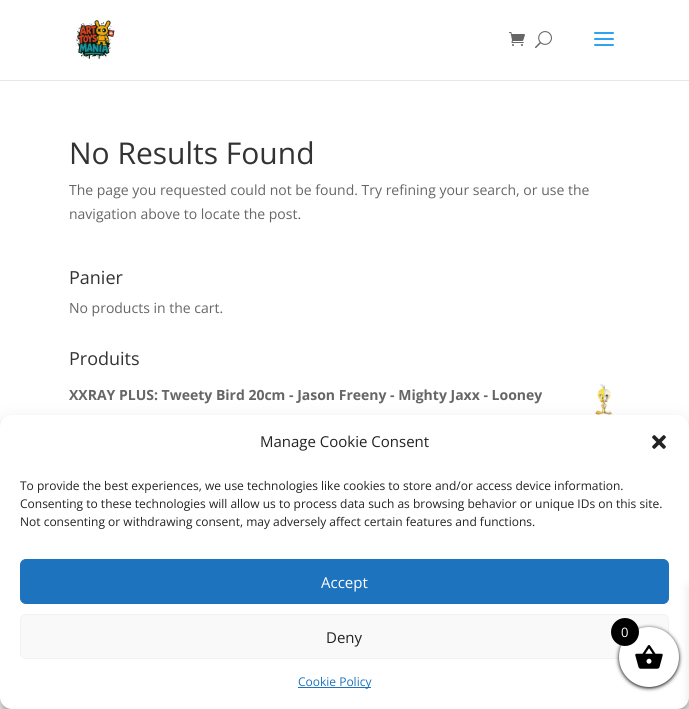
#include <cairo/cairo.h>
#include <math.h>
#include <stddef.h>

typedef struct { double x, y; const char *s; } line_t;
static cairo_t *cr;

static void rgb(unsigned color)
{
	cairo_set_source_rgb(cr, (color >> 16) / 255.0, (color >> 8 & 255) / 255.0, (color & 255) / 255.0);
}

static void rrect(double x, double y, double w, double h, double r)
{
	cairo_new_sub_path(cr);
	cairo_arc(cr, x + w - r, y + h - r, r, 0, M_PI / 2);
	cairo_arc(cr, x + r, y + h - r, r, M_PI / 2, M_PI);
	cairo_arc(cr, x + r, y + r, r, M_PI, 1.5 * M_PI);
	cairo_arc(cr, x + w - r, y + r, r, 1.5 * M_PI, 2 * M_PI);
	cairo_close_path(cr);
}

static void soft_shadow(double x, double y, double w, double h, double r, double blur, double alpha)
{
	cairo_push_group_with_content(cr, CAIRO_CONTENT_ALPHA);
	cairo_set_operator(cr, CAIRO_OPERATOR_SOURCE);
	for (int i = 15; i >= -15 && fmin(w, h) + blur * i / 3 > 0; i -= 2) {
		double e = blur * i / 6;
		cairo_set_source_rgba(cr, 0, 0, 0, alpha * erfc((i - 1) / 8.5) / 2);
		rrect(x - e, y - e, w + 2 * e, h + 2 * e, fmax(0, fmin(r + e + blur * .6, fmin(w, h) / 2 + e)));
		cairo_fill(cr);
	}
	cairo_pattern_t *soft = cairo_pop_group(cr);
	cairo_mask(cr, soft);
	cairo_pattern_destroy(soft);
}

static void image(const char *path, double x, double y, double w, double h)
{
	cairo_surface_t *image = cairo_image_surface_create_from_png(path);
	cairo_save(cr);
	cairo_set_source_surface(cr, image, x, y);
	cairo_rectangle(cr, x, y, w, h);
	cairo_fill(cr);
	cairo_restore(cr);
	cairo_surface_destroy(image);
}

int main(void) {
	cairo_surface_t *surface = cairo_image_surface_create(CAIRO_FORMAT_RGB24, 689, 709);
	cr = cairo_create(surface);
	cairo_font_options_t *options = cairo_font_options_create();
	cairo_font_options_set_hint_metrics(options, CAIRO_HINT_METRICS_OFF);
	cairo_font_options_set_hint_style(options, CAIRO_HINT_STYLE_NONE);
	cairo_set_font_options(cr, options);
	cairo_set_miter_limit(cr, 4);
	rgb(0xffffff);
	cairo_paint(cr);
	rgb(0xe6e6e6);
	cairo_rectangle(cr, 0, 80, 689, 1);
	cairo_fill(cr);
	image("img/1.png", 76, 20, 39, 40);
	image("img/2.png", 509, 32, 16, 14);
	image("img/3.png", 535, 31, 17, 18);
	image("img/4.png", 594, 32, 20, 14);
	image("img/5.png", 595, 384, 18, 31);
	rgb(0x000000);
	soft_shadow(0, 421, 689, 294, 12, 3, 0.23);
	soft_shadow(0, 425, 689, 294, 12, 10, 0.19);
	rgb(0xffffff);
	rrect(0, 415, 689, 294, 12);
	cairo_fill(cr);
	image("img/6.png", 652, 435, 14, 14);
	rgb(0x1e73be);
	rrect(20.5, 559.5, 648, 44, 5.5);
	cairo_fill_preserve(cr);
	cairo_set_line_width(cr, 1);
	cairo_stroke(cr);
	rgb(0xf9f9f9);
	rrect(20.5, 614.5, 648, 44, 5.5);
	cairo_fill_preserve(cr);
	rgb(0xf2f2f2);
	cairo_stroke(cr);
	rgb(0x1e73be);
	cairo_rectangle(cr, 298, 687, 73, 1);
	cairo_fill(cr);
	rgb(0x000000);
	soft_shadow(619, 628, 60, 60, 30, 2, 1);
	soft_shadow(689, 587, 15, 117, 0, 5, 0.1);
	rgb(0xffffff);
	cairo_arc(cr, 649, 657, 30, 0, 2 * M_PI);
	cairo_fill(cr);
	image("img/7.png", 635, 645, 28, 24);
	rgb(0x000000);
	cairo_arc(cr, 625, 632, 14, 0, 2 * M_PI);
	cairo_fill(cr);
	cairo_select_font_face(cr, "Open Sans", CAIRO_FONT_SLANT_NORMAL, CAIRO_FONT_WEIGHT_NORMAL);
	cairo_set_font_size(cr, 30);
	rgb(0x333333);
	cairo_move_to(cr, 69, 164);
	cairo_show_text(cr, "No Results Found");
	cairo_set_font_size(cr, 14);
	rgb(0x666666);
	cairo_move_to(cr, 69, 195);
	cairo_show_text(cr, "The page you requested could not be found. Try refining your search, or use the");
	cairo_move_to(cr, 69, 219);
	cairo_show_text(cr, "navigation above to locate the post.");
	cairo_set_font_size(cr, 18);
	rgb(0x333333);
	cairo_move_to(cr, 69, 284);
	cairo_show_text(cr, "Panier");
	cairo_set_font_size(cr, 14);
	rgb(0x666666);
	cairo_move_to(cr, 69, 313);
	cairo_show_text(cr, "No products in the cart.");
	cairo_set_font_size(cr, 18);
	rgb(0x333333);
	cairo_move_to(cr, 69, 365);
	cairo_show_text(cr, "Produits");
	cairo_select_font_face(cr, "Open Sans", CAIRO_FONT_SLANT_NORMAL, CAIRO_FONT_WEIGHT_BOLD);
	cairo_set_font_size(cr, 14);
	rgb(0x666666);
	cairo_move_to(cr, 69, 400);
	cairo_show_text(cr, "XXRAY PLUS: Tweety Bird 20cm - Jason Freeny - Mighty Jaxx - Looney");
	cairo_select_font_face(cr, "Open Sans", CAIRO_FONT_SLANT_NORMAL, CAIRO_FONT_WEIGHT_NORMAL);
	cairo_set_font_size(cr, 15);
	rgb(0x222222);
	cairo_move_to(cr, 260, 447);
	cairo_show_text(cr, "Manage Cookie Consent");
	cairo_set_font_size(cr, 12);
	{
		static const line_t items[] = {
			{20, 490, "To provide the best experiences, we use technologies like cookies to store and/or access device information."},
			{20, 508, "Consenting to these technologies will allow us to process data such as browsing behavior or unique IDs on this site."},
			{20, 526, "Not consenting or withdrawing consent, may adversely affect certain features and functions."},
		};
		for (size_t i = 0; i < sizeof items / sizeof *items; i++) {
			cairo_move_to(cr, items[i].x, items[i].y);
			cairo_show_text(cr, items[i].s);
		}
	}
	cairo_set_font_size(cr, 15);
	rgb(0xffffff);
	cairo_move_to(cr, 321, 588);
	cairo_show_text(cr, "Accept");
	rgb(0x222222);
	cairo_move_to(cr, 326, 643);
	cairo_show_text(cr, "Deny");
	cairo_set_font_size(cr, 12);
	rgb(0x1e73be);
	cairo_move_to(cr, 298, 686);
	cairo_show_text(cr, "Cookie Policy");
	cairo_set_font_size(cr, 13);
	rgb(0xffffff);
	cairo_move_to(cr, 621, 637);
	cairo_show_text(cr, "0");
	cairo_surface_write_to_png(surface, "page.png");
	cairo_font_options_destroy(options);
	cairo_destroy(cr);
	cairo_surface_destroy(surface);
	return 0;
}
